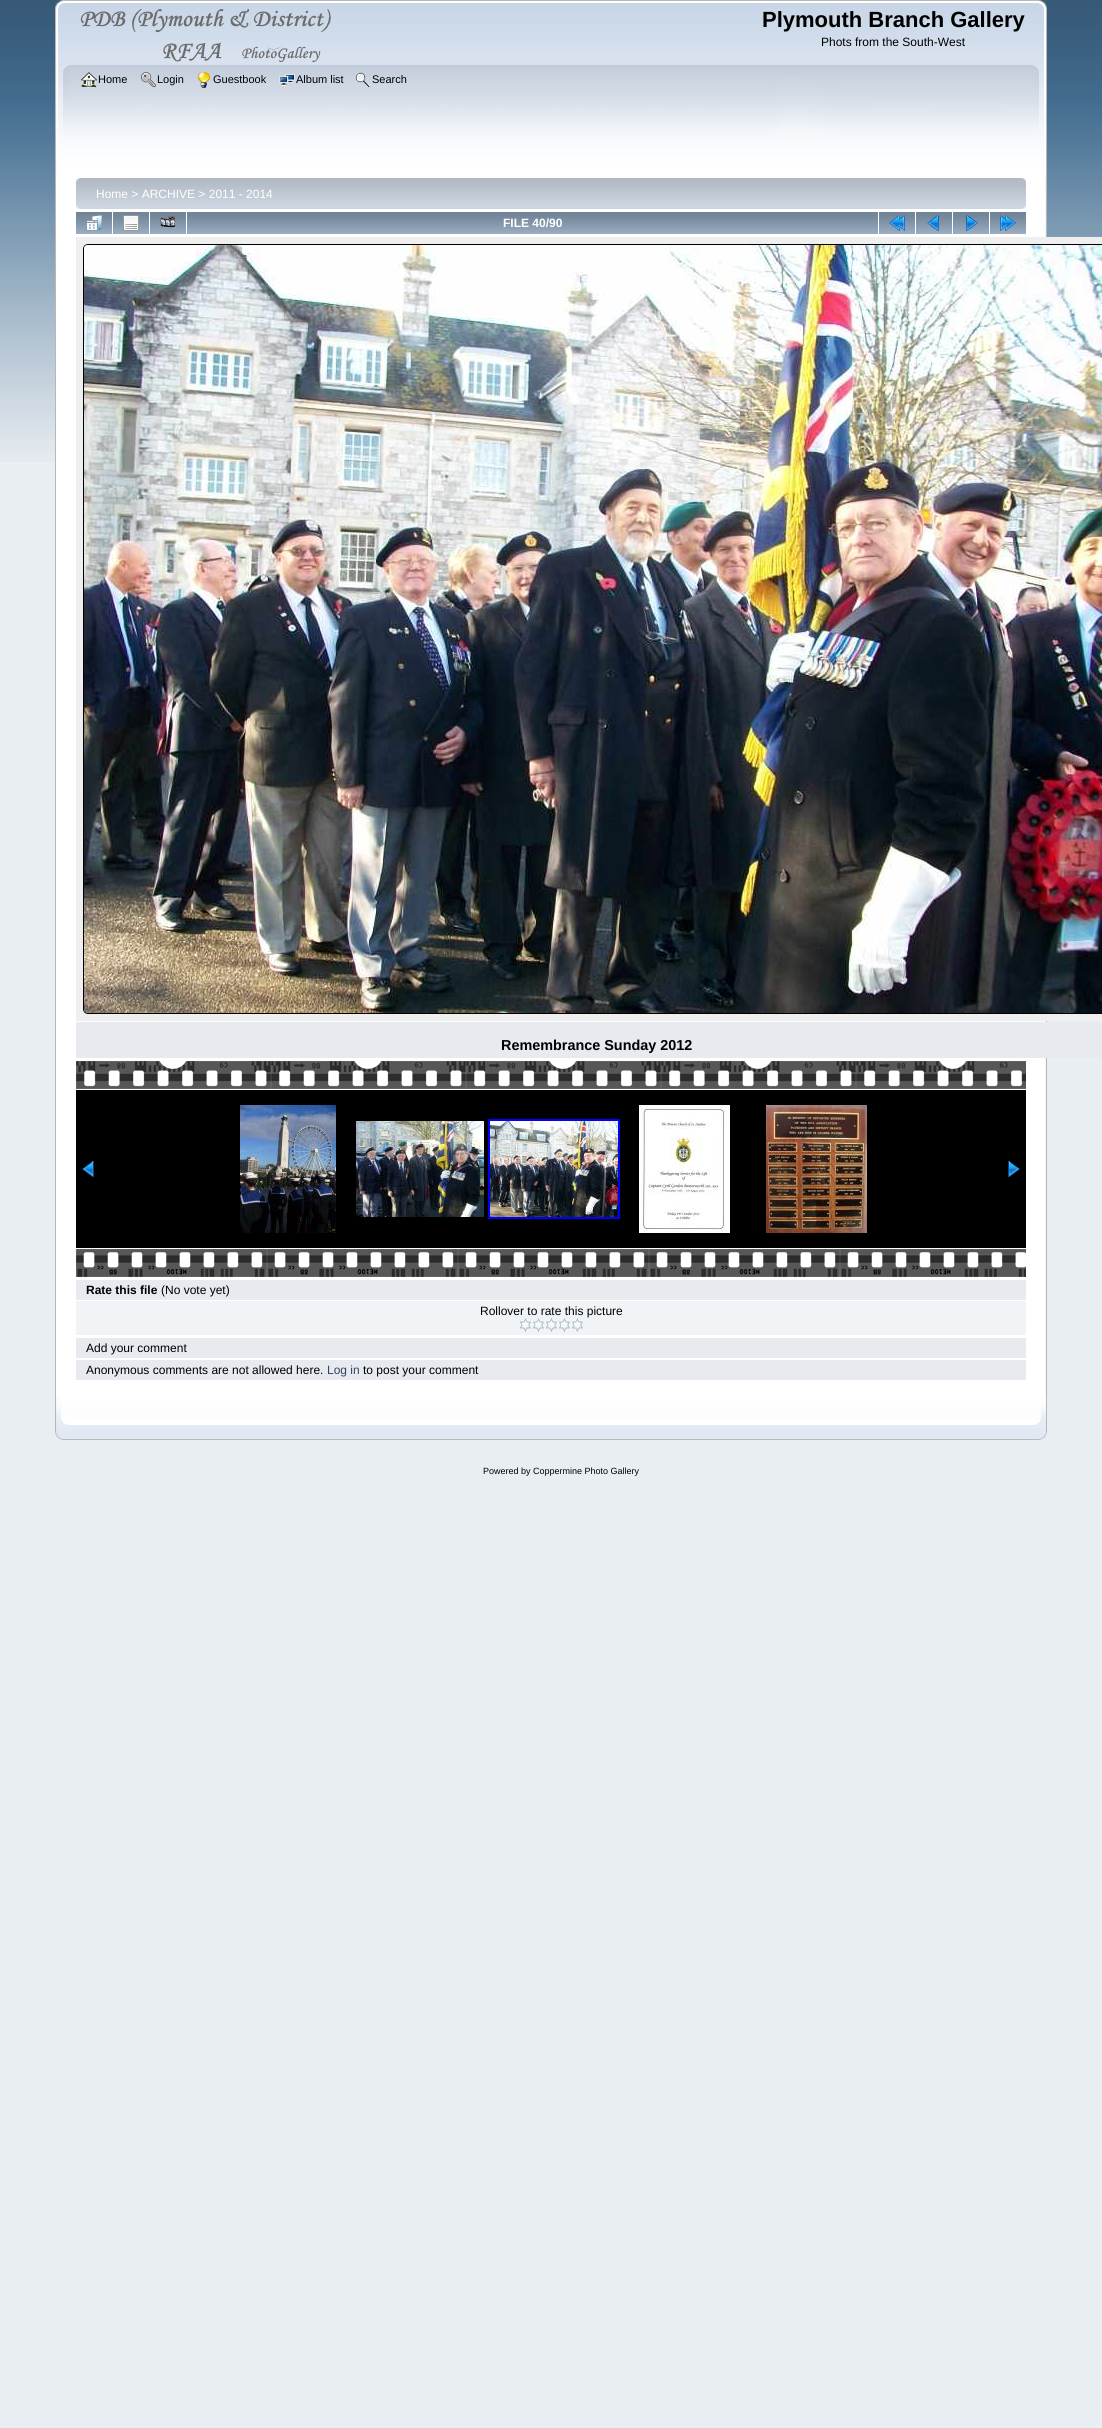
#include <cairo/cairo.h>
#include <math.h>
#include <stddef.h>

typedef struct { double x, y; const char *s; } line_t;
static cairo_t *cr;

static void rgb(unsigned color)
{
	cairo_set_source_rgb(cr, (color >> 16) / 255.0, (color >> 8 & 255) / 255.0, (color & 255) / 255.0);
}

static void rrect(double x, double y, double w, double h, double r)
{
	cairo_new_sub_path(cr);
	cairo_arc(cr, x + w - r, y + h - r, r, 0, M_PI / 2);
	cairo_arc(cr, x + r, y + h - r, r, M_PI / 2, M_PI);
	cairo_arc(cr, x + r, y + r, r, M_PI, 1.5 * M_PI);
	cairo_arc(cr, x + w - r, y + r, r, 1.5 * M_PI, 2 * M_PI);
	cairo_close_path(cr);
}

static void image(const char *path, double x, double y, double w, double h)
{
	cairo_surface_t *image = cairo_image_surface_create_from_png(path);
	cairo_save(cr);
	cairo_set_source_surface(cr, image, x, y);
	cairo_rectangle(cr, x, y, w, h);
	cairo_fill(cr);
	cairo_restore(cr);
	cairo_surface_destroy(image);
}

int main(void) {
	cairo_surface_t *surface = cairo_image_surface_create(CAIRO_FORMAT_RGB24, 1102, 2428);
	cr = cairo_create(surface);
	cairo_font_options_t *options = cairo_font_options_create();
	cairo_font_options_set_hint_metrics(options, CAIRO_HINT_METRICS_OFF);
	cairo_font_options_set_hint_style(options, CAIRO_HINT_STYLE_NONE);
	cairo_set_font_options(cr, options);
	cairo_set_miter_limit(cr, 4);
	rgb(0xe9eef2);
	cairo_paint(cr);
	image("img/1.png", 0, 0, 1102, 462);
	image("img/2.png", 55, 0, 984, 65);
	image("img/3.png", 1039, 0, 8, 65);
	image("img/4.png", 80, 9, 251, 54);
	image("img/5.png", 55, 65, 977, 110);
	image("img/6.png", 1032, 65, 15, 110);
	image("img/7.png", 81, 72, 16, 16);
	image("img/8.png", 141, 72, 15, 15);
	image("img/9.png", 198, 72, 12, 16);
	image("img/10.png", 279, 74, 16, 12);
	image("img/11.png", 355, 72, 16, 15);
	rgb(0xffffff);
	cairo_rectangle(cr, 56, 175, 989, 1221);
	cairo_fill(cr);
	rgb(0xb7b7b7);
	cairo_rectangle(cr, 55, 175, 1, 1221);
	cairo_fill(cr);
	image("img/12.png", 1045, 175, 2, 1221);
	image("img/13.png", 76, 178, 945, 31);
	image("img/14.png", 1021, 178, 5, 31);
	image("img/15.png", 76, 212, 36, 22);
	image("img/16.png", 86, 215, 16, 16);
	image("img/15.png", 113, 212, 36, 22);
	image("img/17.png", 123, 215, 16, 16);
	image("img/15.png", 150, 212, 36, 22);
	image("img/18.png", 160, 216, 16, 12);
	image("img/19.png", 187, 212, 691, 22);
	image("img/15.png", 879, 212, 36, 22);
	image("img/20.png", 889, 215, 16, 16);
	image("img/15.png", 916, 212, 36, 22);
	image("img/21.png", 927, 215, 12, 16);
	image("img/15.png", 953, 212, 36, 22);
	image("img/22.png", 966, 215, 12, 16);
	image("img/15.png", 990, 212, 36, 22);
	image("img/23.png", 1000, 215, 16, 16);
	rgb(0xefefef);
	cairo_rectangle(cr, 76, 237, 1026, 784);
	cairo_fill(cr);
	rrect(83.5, 244.5, 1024, 769, 4.5);
	rgb(0x000000);
	cairo_set_line_width(cr, 1);
	cairo_stroke(cr);
	image("img/24.png", 84, 245, 1018, 768);
	rgb(0xe7eaef);
	cairo_rectangle(cr, 76, 1022, 1026, 36);
	cairo_fill(cr);
	image("img/25.png", 76, 1061, 950, 28);
	rgb(0x000000);
	cairo_rectangle(cr, 76, 1090, 950, 158);
	cairo_fill(cr);
	image("img/26.png", 82, 1161, 12, 16);
	image("img/27.png", 240, 1105, 96, 128);
	image("img/28.png", 356, 1121, 128, 96);
	cairo_rectangle(cr, 489, 1120, 130, 98);
	rgb(0x0000ff);
	cairo_set_line_width(cr, 2);
	cairo_stroke(cr);
	image("img/29.png", 490, 1121, 128, 96);
	image("img/30.png", 639, 1105, 91, 128);
	image("img/31.png", 766, 1105, 101, 128);
	image("img/32.png", 1008, 1161, 12, 16);
	image("img/33.png", 76, 1249, 950, 28);
	rgb(0xe7eaef);
	cairo_rectangle(cr, 76, 1280, 950, 20);
	cairo_fill(cr);
	rgb(0xf0f4f7);
	cairo_rectangle(cr, 76, 1301, 950, 34);
	cairo_fill(cr);
	image("img/34.png", 519, 1318, 13, 14);
	image("img/34.png", 532, 1318, 13, 14);
	image("img/34.png", 545, 1318, 13, 14);
	image("img/34.png", 558, 1318, 13, 14);
	image("img/34.png", 571, 1318, 13, 14);
	rgb(0xe7eaef);
	cairo_rectangle(cr, 76, 1338, 950, 20);
	cairo_fill(cr);
	cairo_rectangle(cr, 76, 1360, 950, 20);
	cairo_fill(cr);
	image("img/35.png", 55, 1396, 979, 44);
	image("img/36.png", 1034, 1396, 13, 44);
	cairo_select_font_face(cr, "Liberation Sans", CAIRO_FONT_SLANT_NORMAL, CAIRO_FONT_WEIGHT_BOLD);
	cairo_set_font_size(cr, 22);
	rgb(0x000000);
	cairo_move_to(cr, 762, 27);
	cairo_show_text(cr, "Plymouth Branch Gallery");
	cairo_select_font_face(cr, "Liberation Sans", CAIRO_FONT_SLANT_NORMAL, CAIRO_FONT_WEIGHT_NORMAL);
	cairo_set_font_size(cr, 12);
	cairo_move_to(cr, 821, 46);
	cairo_show_text(cr, "Phots from the South-West");
	cairo_set_font_size(cr, 11);
	{
		static const line_t items[] = {
			{98, 83, "Home"},
			{157, 83, "Login"},
			{213, 83, "Guestbook"},
			{296, 83, "Album list"},
			{372, 83, "Search"},
		};
		for (size_t i = 0; i < sizeof items / sizeof *items; i++) {
			cairo_move_to(cr, items[i].x, items[i].y);
			cairo_show_text(cr, items[i].s);
		}
	}
	cairo_set_font_size(cr, 12);
	rgb(0xffffff);
	cairo_move_to(cr, 96, 198);
	cairo_show_text(cr, "Home > ARCHIVE > 2011 - 2014");
	cairo_select_font_face(cr, "Liberation Sans", CAIRO_FONT_SLANT_NORMAL, CAIRO_FONT_WEIGHT_BOLD);
	cairo_move_to(cr, 503, 227);
	cairo_show_text(cr, "FILE 40/90");
	cairo_set_font_size(cr, 14.4);
	rgb(0x000000);
	cairo_move_to(cr, 501, 1050);
	cairo_show_text(cr, "Remembrance Sunday 2012");
	cairo_set_font_size(cr, 12);
	cairo_move_to(cr, 86, 1294);
	cairo_show_text(cr, "Rate this file");
	cairo_select_font_face(cr, "Liberation Sans", CAIRO_FONT_SLANT_NORMAL, CAIRO_FONT_WEIGHT_NORMAL);
	{
		static const line_t items[] = {
			{161, 1294, "(No vote yet)"},
			{480, 1315, "Rollover to rate this picture"},
			{86, 1352, "Add your comment"},
			{86, 1374, "Anonymous comments are not allowed here."},
		};
		for (size_t i = 0; i < sizeof items / sizeof *items; i++) {
			cairo_move_to(cr, items[i].x, items[i].y);
			cairo_show_text(cr, items[i].s);
		}
	}
	rgb(0x334466);
	cairo_move_to(cr, 327, 1374);
	cairo_show_text(cr, "Log in");
	rgb(0x000000);
	cairo_move_to(cr, 363, 1374);
	cairo_show_text(cr, "to post your comment");
	cairo_set_font_size(cr, 9);
	cairo_move_to(cr, 483, 1474);
	cairo_show_text(cr, "Powered by Coppermine Photo Gallery");
	cairo_surface_write_to_png(surface, "page.png");
	cairo_font_options_destroy(options);
	cairo_destroy(cr);
	cairo_surface_destroy(surface);
	return 0;
}
